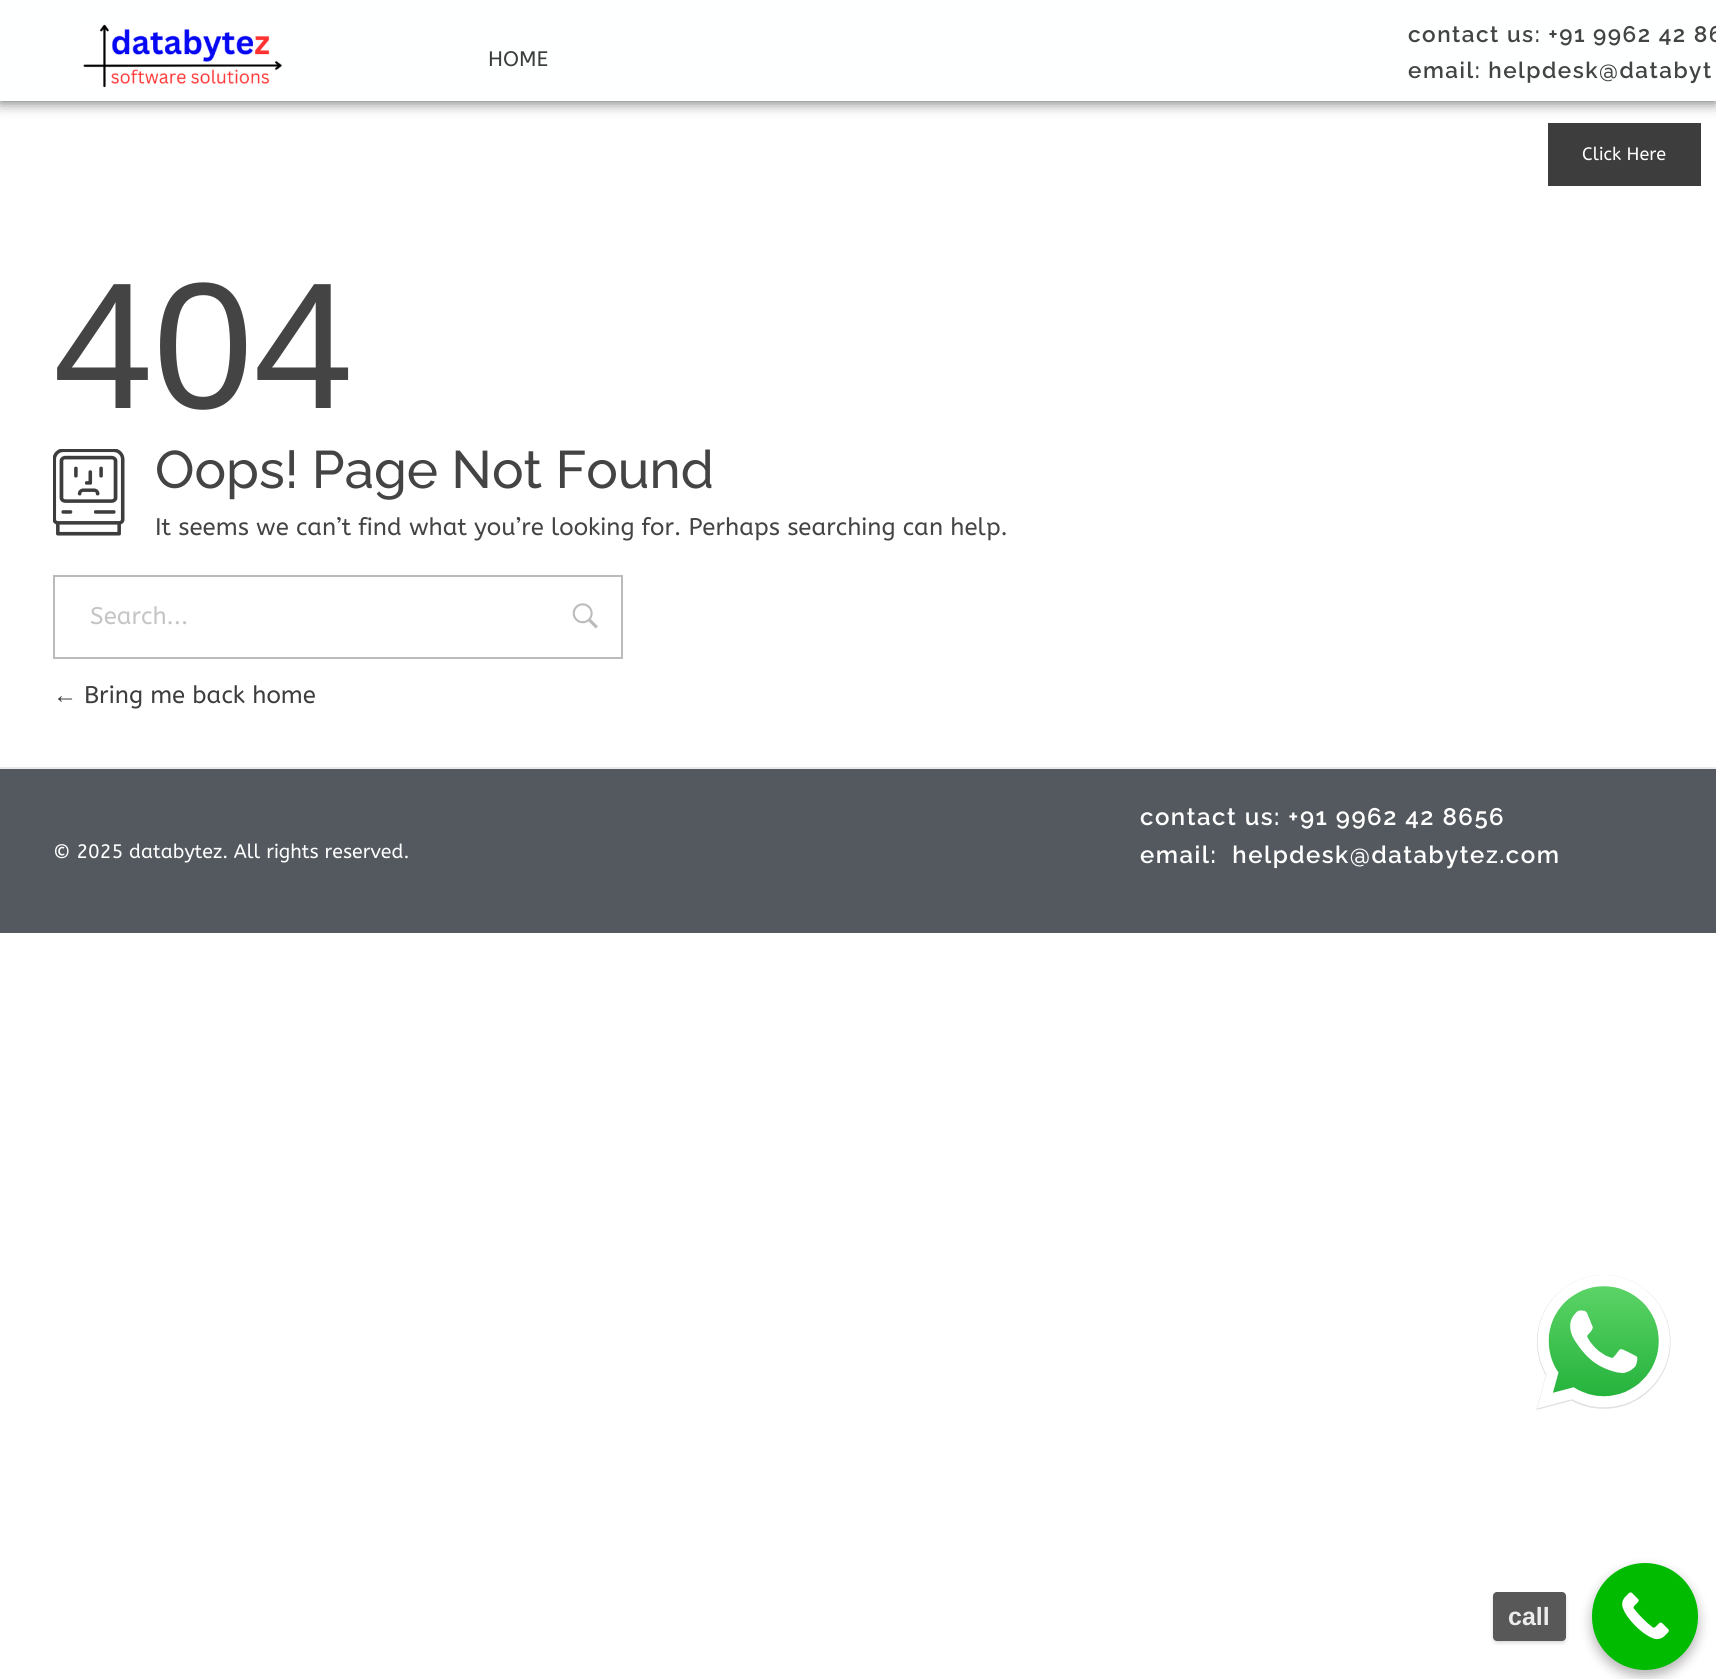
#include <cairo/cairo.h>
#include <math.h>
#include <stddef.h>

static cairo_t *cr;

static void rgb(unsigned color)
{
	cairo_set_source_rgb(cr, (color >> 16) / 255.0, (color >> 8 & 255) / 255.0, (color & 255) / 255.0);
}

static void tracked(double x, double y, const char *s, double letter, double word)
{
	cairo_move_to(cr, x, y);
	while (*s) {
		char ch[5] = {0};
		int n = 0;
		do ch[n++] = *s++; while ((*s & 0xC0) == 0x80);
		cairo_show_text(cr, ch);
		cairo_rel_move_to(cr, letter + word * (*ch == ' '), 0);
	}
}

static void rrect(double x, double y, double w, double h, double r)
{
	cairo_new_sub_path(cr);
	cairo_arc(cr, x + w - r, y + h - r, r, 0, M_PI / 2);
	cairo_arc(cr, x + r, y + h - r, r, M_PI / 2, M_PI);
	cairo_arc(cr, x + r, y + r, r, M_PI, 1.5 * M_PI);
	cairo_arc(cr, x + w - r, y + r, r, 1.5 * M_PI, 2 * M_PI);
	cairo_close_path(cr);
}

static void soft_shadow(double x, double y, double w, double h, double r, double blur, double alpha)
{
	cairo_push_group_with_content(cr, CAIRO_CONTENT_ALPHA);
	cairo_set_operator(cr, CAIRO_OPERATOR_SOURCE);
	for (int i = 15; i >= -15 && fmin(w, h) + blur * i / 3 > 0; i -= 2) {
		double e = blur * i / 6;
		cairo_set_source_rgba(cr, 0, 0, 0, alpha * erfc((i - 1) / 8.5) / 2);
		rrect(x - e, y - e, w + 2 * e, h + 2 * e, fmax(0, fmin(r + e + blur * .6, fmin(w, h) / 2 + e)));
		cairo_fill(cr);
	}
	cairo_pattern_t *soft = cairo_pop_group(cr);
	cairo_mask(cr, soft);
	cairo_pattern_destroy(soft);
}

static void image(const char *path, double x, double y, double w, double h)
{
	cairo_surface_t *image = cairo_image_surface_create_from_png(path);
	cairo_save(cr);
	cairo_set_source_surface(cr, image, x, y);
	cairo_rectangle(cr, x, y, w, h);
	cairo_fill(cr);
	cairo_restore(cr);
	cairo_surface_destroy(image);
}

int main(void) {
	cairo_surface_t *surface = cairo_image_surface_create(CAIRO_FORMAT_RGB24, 1716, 1679);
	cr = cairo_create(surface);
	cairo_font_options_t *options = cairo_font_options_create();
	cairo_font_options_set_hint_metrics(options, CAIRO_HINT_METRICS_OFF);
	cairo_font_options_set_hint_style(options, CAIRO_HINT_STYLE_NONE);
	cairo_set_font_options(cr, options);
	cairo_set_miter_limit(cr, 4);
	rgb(0xffffff);
	cairo_paint(cr);
	rgb(0x363434);
	soft_shadow(0, 0, 1716, 101, 0, 7.5, 0.86);
	rgb(0xfeffff);
	cairo_rectangle(cr, 0, 0, 1716, 101);
	cairo_fill(cr);
	image("img/1.png", 83, 24, 199, 64);
	rgb(0x3d3d3d);
	cairo_rectangle(cr, 1548, 123, 153, 63);
	cairo_fill(cr);
	image("img/2.png", 53, 449, 72, 87);
	cairo_rectangle(cr, 54, 576, 568, 82);
	rgb(0xbbbbbb);
	cairo_stroke(cr);
	image("img/3.png", 572, 603, 26, 26);
	rgb(0x54595f);
	cairo_rectangle(cr, 0, 769, 1716, 164);
	cairo_fill(cr);
	rgb(0xeaeaea);
	cairo_rectangle(cr, 0, 767, 1716, 2);
	cairo_fill(cr);
	image("img/4.png", 1536, 1275, 135, 135);
	rgb(0x000000);
	soft_shadow(1592, 1569, 106, 107, 53, 6, 0.3);
	rgb(0x00bb00);
	rrect(1592, 1563, 106, 107, 53);
	cairo_fill(cr);
	image("img/5.png", 1622, 1592, 47, 48);
	cairo_save(cr);
	cairo_set_fill_rule(cr, CAIRO_FILL_RULE_EVEN_ODD);
	cairo_new_path(cr);
	cairo_move_to(cr, 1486, 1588);
	cairo_line_to(cr, 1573, 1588);
	cairo_line_to(cr, 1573, 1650);
	cairo_line_to(cr, 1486, 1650);
	cairo_close_path(cr);
	cairo_move_to(cr, 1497, 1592);
	cairo_line_to(cr, 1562, 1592);
	cairo_curve_to(cr, 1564, 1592, 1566, 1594, 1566, 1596);
	cairo_line_to(cr, 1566, 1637);
	cairo_curve_to(cr, 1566, 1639, 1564, 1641, 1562, 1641);
	cairo_line_to(cr, 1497, 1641);
	cairo_curve_to(cr, 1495, 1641, 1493, 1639, 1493, 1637);
	cairo_line_to(cr, 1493, 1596);
	cairo_curve_to(cr, 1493, 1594, 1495, 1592, 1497, 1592);
	cairo_close_path(cr);
	cairo_clip(cr);
	rgb(0x000000);
	soft_shadow(1493, 1595, 73, 48, 4, 2, 0.15);
	cairo_restore(cr);
	cairo_set_source_rgba(cr, 0.275, 0.275, 0.275, 0.9);
	rrect(1493, 1592, 73, 49, 4);
	cairo_fill(cr);
	cairo_select_font_face(cr, "ABeeZee", CAIRO_FONT_SLANT_NORMAL, CAIRO_FONT_WEIGHT_NORMAL);
	cairo_set_font_size(cr, 21);
	rgb(0x3d3d3d);
	cairo_move_to(cr, 488, 66);
	cairo_show_text(cr, "HOME");
	cairo_select_font_face(cr, "Raleway SemiBold", CAIRO_FONT_SLANT_NORMAL, CAIRO_FONT_WEIGHT_NORMAL);
	cairo_set_font_size(cr, 22.5);
	rgb(0x444444);
	tracked(1408, 42, "contact us: +91 9962 42 86", 1.5, 0);
	tracked(1408, 78, "email: helpdesk@databyt", 1.5, 0);
	cairo_select_font_face(cr, "ABeeZee", CAIRO_FONT_SLANT_NORMAL, CAIRO_FONT_WEIGHT_NORMAL);
	cairo_set_font_size(cr, 18);
	rgb(0xffffff);
	cairo_move_to(cr, 1582, 160);
	cairo_show_text(cr, "Click Here");
	cairo_select_font_face(cr, "Liberation Sans", CAIRO_FONT_SLANT_NORMAL, CAIRO_FONT_WEIGHT_NORMAL);
	cairo_set_font_size(cr, 180);
	rgb(0x444444);
	cairo_move_to(cr, 53, 408);
	cairo_show_text(cr, "404");
	cairo_select_font_face(cr, "Raleway Medium", CAIRO_FONT_SLANT_NORMAL, CAIRO_FONT_WEIGHT_NORMAL);
	cairo_set_font_size(cr, 52.75);
	cairo_move_to(cr, 155, 488);
	cairo_show_text(cr, "Oops! Page Not Found");
	cairo_select_font_face(cr, "ABeeZee", CAIRO_FONT_SLANT_NORMAL, CAIRO_FONT_WEIGHT_NORMAL);
	cairo_set_font_size(cr, 24);
	cairo_move_to(cr, 155, 535);
	cairo_show_text(cr, "It seems we can’t find what you’re looking for. Perhaps searching can help.");
	rgb(0xc5c5c5);
	cairo_move_to(cr, 90, 624);
	cairo_show_text(cr, "Search...");
	cairo_select_font_face(cr, "Liberation Sans", CAIRO_FONT_SLANT_NORMAL, CAIRO_FONT_WEIGHT_NORMAL);
	rgb(0x3d3d3d);
	cairo_move_to(cr, 53, 703);
	cairo_show_text(cr, "←");
	cairo_select_font_face(cr, "ABeeZee", CAIRO_FONT_SLANT_NORMAL, CAIRO_FONT_WEIGHT_NORMAL);
	cairo_move_to(cr, 84, 703);
	cairo_show_text(cr, "Bring me back home");
	cairo_set_font_size(cr, 19.5);
	rgb(0xffffff);
	cairo_move_to(cr, 53, 858);
	cairo_show_text(cr, "© 2025 databytez. All rights reserved.");
	cairo_select_font_face(cr, "Raleway SemiBold", CAIRO_FONT_SLANT_NORMAL, CAIRO_FONT_WEIGHT_NORMAL);
	cairo_set_font_size(cr, 24);
	tracked(1140, 825, "contact us: +91 9962 42 8656", 1.5, 0);
	tracked(1140, 863, "email:  helpdesk@databytez.com", 1.5, 0);
	cairo_select_font_face(cr, "Liberation Sans", CAIRO_FONT_SLANT_NORMAL, CAIRO_FONT_WEIGHT_BOLD);
	cairo_set_font_size(cr, 25);
	rgb(0xececec);
	cairo_move_to(cr, 1508, 1625);
	cairo_show_text(cr, "call");
	cairo_surface_write_to_png(surface, "page.png");
	cairo_font_options_destroy(options);
	cairo_destroy(cr);
	cairo_surface_destroy(surface);
	return 0;
}
